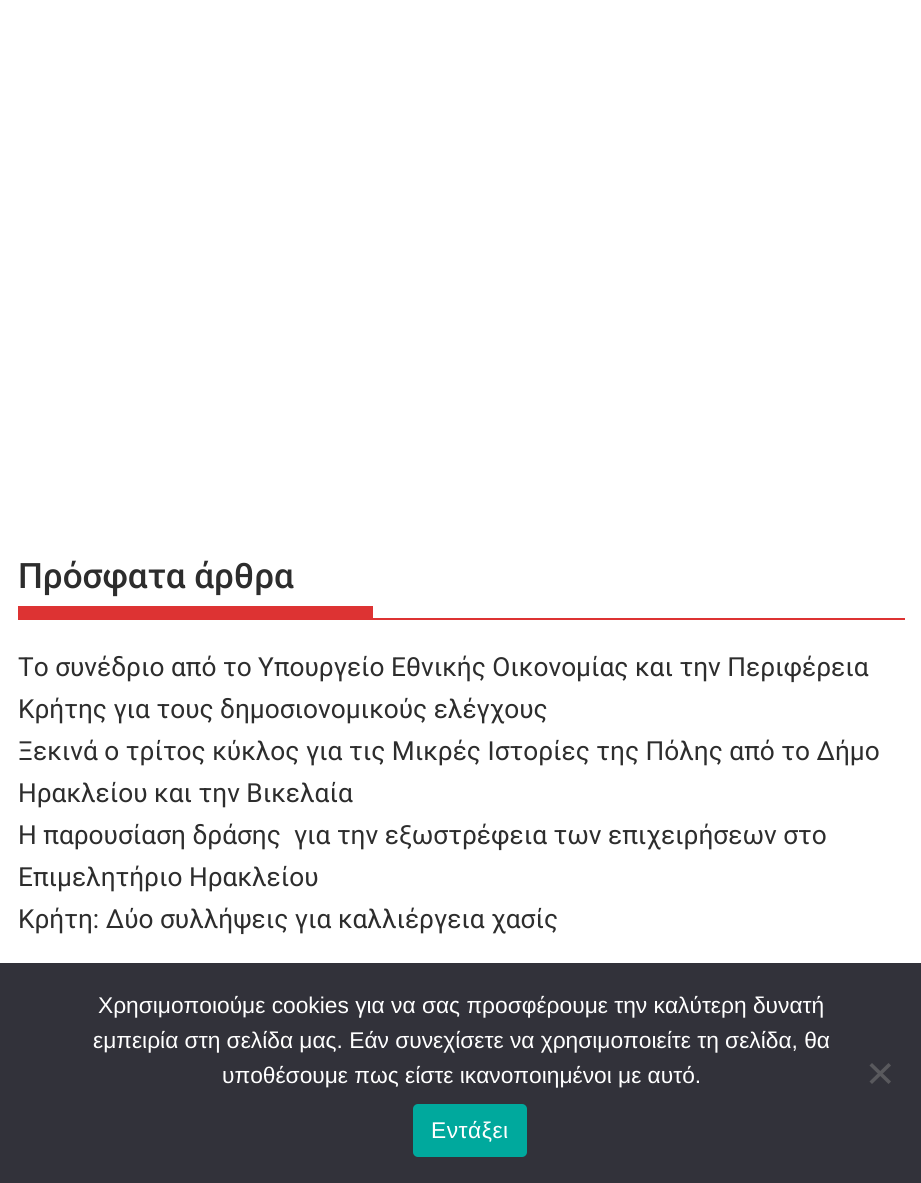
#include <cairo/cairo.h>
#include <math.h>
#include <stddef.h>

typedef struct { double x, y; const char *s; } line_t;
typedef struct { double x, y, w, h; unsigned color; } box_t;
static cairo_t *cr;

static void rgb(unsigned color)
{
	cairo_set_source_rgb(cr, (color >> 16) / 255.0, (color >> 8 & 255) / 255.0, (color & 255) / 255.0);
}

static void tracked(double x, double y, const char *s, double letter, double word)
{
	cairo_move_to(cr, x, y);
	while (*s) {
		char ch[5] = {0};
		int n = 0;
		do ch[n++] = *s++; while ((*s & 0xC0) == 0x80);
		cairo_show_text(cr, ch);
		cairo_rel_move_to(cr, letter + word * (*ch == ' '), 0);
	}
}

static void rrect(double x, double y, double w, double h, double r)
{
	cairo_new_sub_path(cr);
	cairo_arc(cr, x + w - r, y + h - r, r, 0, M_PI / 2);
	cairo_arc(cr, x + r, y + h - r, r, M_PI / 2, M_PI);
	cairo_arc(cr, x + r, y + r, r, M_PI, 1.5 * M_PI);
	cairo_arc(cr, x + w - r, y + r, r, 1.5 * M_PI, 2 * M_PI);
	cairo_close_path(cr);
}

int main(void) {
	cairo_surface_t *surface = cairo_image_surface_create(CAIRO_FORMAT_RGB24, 921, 1183);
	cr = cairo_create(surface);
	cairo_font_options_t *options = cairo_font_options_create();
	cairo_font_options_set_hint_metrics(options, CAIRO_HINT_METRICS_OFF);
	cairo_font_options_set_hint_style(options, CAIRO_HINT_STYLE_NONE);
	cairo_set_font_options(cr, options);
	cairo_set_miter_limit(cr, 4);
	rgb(0xffffff);
	cairo_paint(cr);
	{
		static const box_t items[] = {
			{18, 618, 887, 2, 0xdd3333},
			{18, 606, 355, 12, 0xdd3333},
			{0, 963, 921, 220, 0x32323a},
		};
		for (size_t i = 0; i < sizeof items / sizeof *items; i++) {
			rgb(items[i].color);
			cairo_rectangle(cr, items[i].x, items[i].y, items[i].w, items[i].h);
			cairo_fill(cr);
		}
	}
	rgb(0x59595d);
	cairo_new_path(cr);
	cairo_move_to(cr, 888.5, 1063);
	cairo_line_to(cr, 891, 1065.5);
	cairo_line_to(cr, 872, 1084);
	cairo_line_to(cr, 869.5, 1081.5);
	cairo_close_path(cr);
	cairo_fill(cr);
	cairo_new_path(cr);
	cairo_move_to(cr, 869.5, 1065.5);
	cairo_line_to(cr, 872, 1063);
	cairo_line_to(cr, 891, 1081.5);
	cairo_line_to(cr, 888.5, 1084);
	cairo_close_path(cr);
	cairo_fill(cr);
	rgb(0x00a99d);
	rrect(413, 1104, 114, 53, 5);
	cairo_fill(cr);
	cairo_select_font_face(cr, "Roboto Medium", CAIRO_FONT_SLANT_NORMAL, CAIRO_FONT_WEIGHT_NORMAL);
	cairo_set_font_size(cr, 35);
	rgb(0x2d2d2d);
	cairo_move_to(cr, 18, 588);
	cairo_show_text(cr, "Πρόσφατα άρθρα");
	cairo_select_font_face(cr, "Roboto", CAIRO_FONT_SLANT_NORMAL, CAIRO_FONT_WEIGHT_NORMAL);
	cairo_set_font_size(cr, 26.25);
	{
		static const line_t items[] = {
			{18, 676, "Tο συνέδριο από το Υπουργείο Εθνικής Οικονομίας και την Περιφέρεια"},
			{18, 718, "Κρήτης για τους δημοσιονομικούς ελέγχους"},
			{18, 760, "Ξεκινά ο τρίτος κύκλος για τις Μικρές Ιστορίες της Πόλης από το Δήμο"},
			{18, 802, "Ηρακλείου και την Βικελαία"},
			{18, 844, "Η παρουσίαση δράσης  για την εξωστρέφεια των επιχειρήσεων στο"},
			{18, 886, "Επιμελητήριο Ηρακλείου"},
			{18, 928, "Κρήτη: Δύο συλλήψεις για καλλιέργεια χασίς"},
		};
		for (size_t i = 0; i < sizeof items / sizeof *items; i++) {
			cairo_move_to(cr, items[i].x, items[i].y);
			cairo_show_text(cr, items[i].s);
		}
	}
	cairo_select_font_face(cr, "Liberation Sans", CAIRO_FONT_SLANT_NORMAL, CAIRO_FONT_WEIGHT_NORMAL);
	cairo_set_font_size(cr, 22.75);
	rgb(0xffffff);
	{
		static const line_t items[] = {
			{98, 1013, "Χρησιμοποιούμε cookies για να σας προσφέρουμε την καλύτερη δυνατή"},
			{93, 1048, "εμπειρία στη σελίδα μας. Εάν συνεχίσετε να χρησιμοποιείτε τη σελίδα, θα"},
			{222, 1083, "υποθέσουμε πως είστε ικανοποιημένοι με αυτό."},
		};
		for (size_t i = 0; i < sizeof items / sizeof *items; i++) {
			cairo_move_to(cr, items[i].x, items[i].y);
			cairo_show_text(cr, items[i].s);
		}
	}
	tracked(431, 1138, "Εντάξει", 0.5, 0);
	cairo_surface_write_to_png(surface, "page.png");
	cairo_font_options_destroy(options);
	cairo_destroy(cr);
	cairo_surface_destroy(surface);
	return 0;
}
